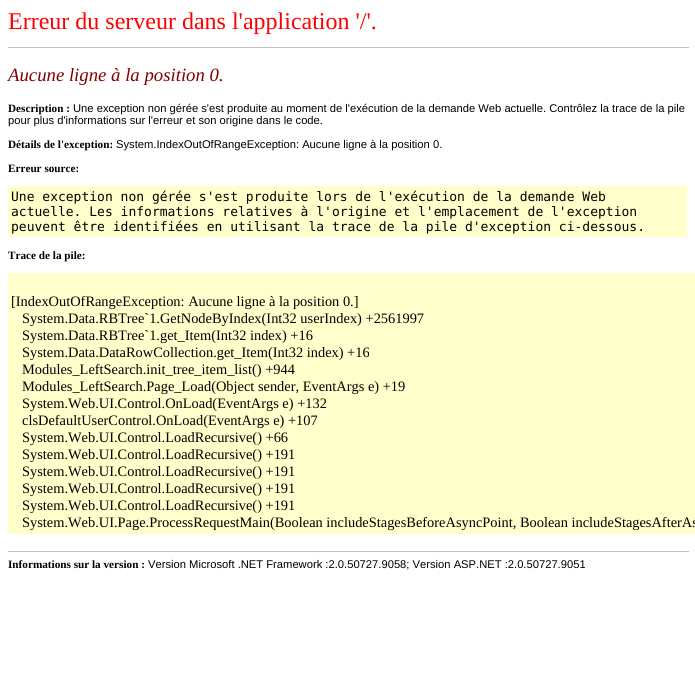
#include <cairo/cairo.h>
#include <math.h>
#include <stddef.h>

typedef struct { double x, y; const char *s; } line_t;
typedef struct { double x, y, w, h; unsigned color; } box_t;
static cairo_t *cr;

static void rgb(unsigned color)
{
	cairo_set_source_rgb(cr, (color >> 16) / 255.0, (color >> 8 & 255) / 255.0, (color & 255) / 255.0);
}

int main(void) {
	cairo_surface_t *surface = cairo_image_surface_create(CAIRO_FORMAT_RGB24, 695, 690);
	cr = cairo_create(surface);
	cairo_font_options_t *options = cairo_font_options_create();
	cairo_font_options_set_hint_metrics(options, CAIRO_HINT_METRICS_OFF);
	cairo_font_options_set_hint_style(options, CAIRO_HINT_STYLE_NONE);
	cairo_set_font_options(cr, options);
	cairo_set_miter_limit(cr, 4);
	rgb(0xffffff);
	cairo_paint(cr);
	{
		static const box_t items[] = {
			{8, 47, 681, 1, 0xc0c0c0},
			{8, 186, 679, 51, 0xffffcc},
			{8, 273, 687, 261, 0xffffcc},
			{8, 551, 681, 1, 0xc0c0c0},
		};
		for (size_t i = 0; i < sizeof items / sizeof *items; i++) {
			rgb(items[i].color);
			cairo_rectangle(cr, items[i].x, items[i].y, items[i].w, items[i].h);
			cairo_fill(cr);
		}
	}
	cairo_select_font_face(cr, "Liberation Serif", CAIRO_FONT_SLANT_NORMAL, CAIRO_FONT_WEIGHT_NORMAL);
	cairo_set_font_size(cr, 24);
	rgb(0xff0000);
	cairo_move_to(cr, 8, 29);
	cairo_show_text(cr, "Erreur du serveur dans l'application '/'.");
	cairo_select_font_face(cr, "Liberation Serif", CAIRO_FONT_SLANT_ITALIC, CAIRO_FONT_WEIGHT_NORMAL);
	cairo_set_font_size(cr, 18.75);
	rgb(0x800000);
	cairo_move_to(cr, 8, 81);
	cairo_show_text(cr, "Aucune ligne à la position 0.");
	cairo_select_font_face(cr, "Liberation Serif", CAIRO_FONT_SLANT_NORMAL, CAIRO_FONT_WEIGHT_BOLD);
	cairo_set_font_size(cr, 11.2);
	rgb(0x000000);
	cairo_move_to(cr, 8, 112);
	cairo_show_text(cr, "Description :");
	cairo_select_font_face(cr, "Liberation Sans", CAIRO_FONT_SLANT_NORMAL, CAIRO_FONT_WEIGHT_NORMAL);
	cairo_move_to(cr, 73, 112);
	cairo_show_text(cr, "Une exception non gérée s'est produite au moment de l'exécution de la demande Web actuelle. Contrôlez la trace de la pile");
	cairo_move_to(cr, 8, 124);
	cairo_show_text(cr, "pour plus d'informations sur l'erreur et son origine dans le code.");
	cairo_select_font_face(cr, "Liberation Serif", CAIRO_FONT_SLANT_NORMAL, CAIRO_FONT_WEIGHT_BOLD);
	cairo_move_to(cr, 8, 148);
	cairo_show_text(cr, "Détails de l'exception:");
	cairo_select_font_face(cr, "Liberation Sans", CAIRO_FONT_SLANT_NORMAL, CAIRO_FONT_WEIGHT_NORMAL);
	cairo_move_to(cr, 116, 148);
	cairo_show_text(cr, "System.IndexOutOfRangeException: Aucune ligne à la position 0.");
	cairo_select_font_face(cr, "Liberation Serif", CAIRO_FONT_SLANT_NORMAL, CAIRO_FONT_WEIGHT_BOLD);
	cairo_move_to(cr, 8, 172);
	cairo_show_text(cr, "Erreur source:");
	cairo_select_font_face(cr, "DejaVu Sans Mono", CAIRO_FONT_SLANT_NORMAL, CAIRO_FONT_WEIGHT_NORMAL);
	cairo_set_font_size(cr, 13);
	{
		static const line_t items[] = {
			{11, 201, "Une exception non gérée s'est produite lors de l'exécution de la demande Web"},
			{11, 216, "actuelle. Les informations relatives à l'origine et l'emplacement de l'exception"},
			{11, 231, "peuvent être identifiées en utilisant la trace de la pile d'exception ci-dessous."},
		};
		for (size_t i = 0; i < sizeof items / sizeof *items; i++) {
			cairo_move_to(cr, items[i].x, items[i].y);
			cairo_show_text(cr, items[i].s);
		}
	}
	cairo_select_font_face(cr, "Liberation Serif", CAIRO_FONT_SLANT_NORMAL, CAIRO_FONT_WEIGHT_BOLD);
	cairo_set_font_size(cr, 11.2);
	cairo_move_to(cr, 8, 259);
	cairo_show_text(cr, "Trace de la pile:");
	cairo_select_font_face(cr, "Liberation Serif", CAIRO_FONT_SLANT_NORMAL, CAIRO_FONT_WEIGHT_NORMAL);
	cairo_set_font_size(cr, 14.4);
	{
		static const line_t items[] = {
			{11, 306, "[IndexOutOfRangeException: Aucune ligne à la position 0.]"},
			{22, 323, "System.Data.RBTree`1.GetNodeByIndex(Int32 userIndex) +2561997"},
			{22, 340, "System.Data.RBTree`1.get_Item(Int32 index) +16"},
			{22, 357, "System.Data.DataRowCollection.get_Item(Int32 index) +16"},
			{22, 374, "Modules_LeftSearch.init_tree_item_list() +944"},
			{22, 391, "Modules_LeftSearch.Page_Load(Object sender, EventArgs e) +19"},
			{22, 408, "System.Web.UI.Control.OnLoad(EventArgs e) +132"},
			{22, 425, "clsDefaultUserControl.OnLoad(EventArgs e) +107"},
			{22, 442, "System.Web.UI.Control.LoadRecursive() +66"},
			{22, 459, "System.Web.UI.Control.LoadRecursive() +191"},
			{22, 476, "System.Web.UI.Control.LoadRecursive() +191"},
			{22, 493, "System.Web.UI.Control.LoadRecursive() +191"},
			{22, 510, "System.Web.UI.Control.LoadRecursive() +191"},
			{22, 527, "System.Web.UI.Page.ProcessRequestMain(Boolean includeStagesBeforeAsyncPoint, Boolean includeStagesAfterAs"},
		};
		for (size_t i = 0; i < sizeof items / sizeof *items; i++) {
			cairo_move_to(cr, items[i].x, items[i].y);
			cairo_show_text(cr, items[i].s);
		}
	}
	cairo_select_font_face(cr, "Liberation Serif", CAIRO_FONT_SLANT_NORMAL, CAIRO_FONT_WEIGHT_BOLD);
	cairo_set_font_size(cr, 11.2);
	cairo_move_to(cr, 8, 568);
	cairo_show_text(cr, "Informations sur la version :");
	cairo_select_font_face(cr, "Liberation Sans", CAIRO_FONT_SLANT_NORMAL, CAIRO_FONT_WEIGHT_NORMAL);
	cairo_move_to(cr, 148, 568);
	cairo_show_text(cr, "Version Microsoft .NET Framework :2.0.50727.9058; Version ASP.NET :2.0.50727.9051");
	cairo_surface_write_to_png(surface, "page.png");
	cairo_font_options_destroy(options);
	cairo_destroy(cr);
	cairo_surface_destroy(surface);
	return 0;
}
